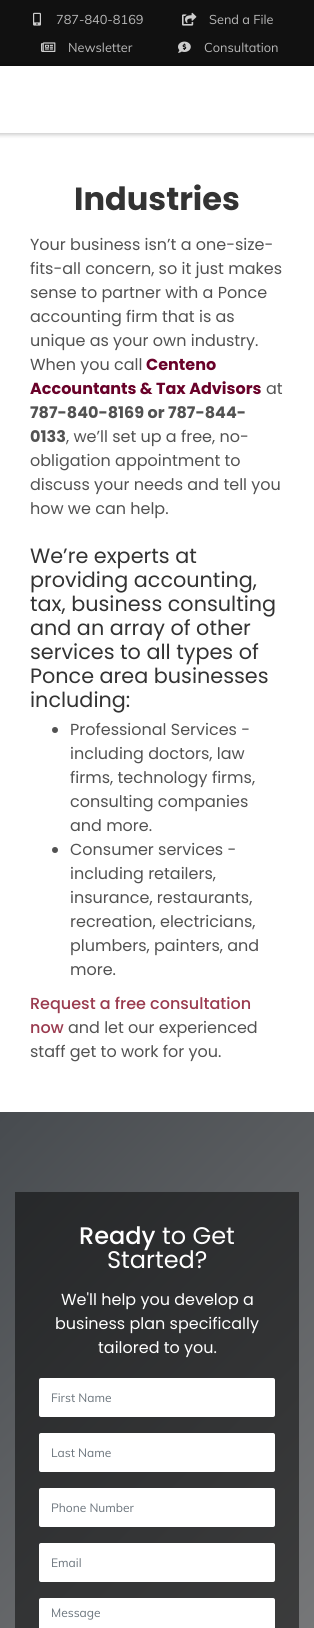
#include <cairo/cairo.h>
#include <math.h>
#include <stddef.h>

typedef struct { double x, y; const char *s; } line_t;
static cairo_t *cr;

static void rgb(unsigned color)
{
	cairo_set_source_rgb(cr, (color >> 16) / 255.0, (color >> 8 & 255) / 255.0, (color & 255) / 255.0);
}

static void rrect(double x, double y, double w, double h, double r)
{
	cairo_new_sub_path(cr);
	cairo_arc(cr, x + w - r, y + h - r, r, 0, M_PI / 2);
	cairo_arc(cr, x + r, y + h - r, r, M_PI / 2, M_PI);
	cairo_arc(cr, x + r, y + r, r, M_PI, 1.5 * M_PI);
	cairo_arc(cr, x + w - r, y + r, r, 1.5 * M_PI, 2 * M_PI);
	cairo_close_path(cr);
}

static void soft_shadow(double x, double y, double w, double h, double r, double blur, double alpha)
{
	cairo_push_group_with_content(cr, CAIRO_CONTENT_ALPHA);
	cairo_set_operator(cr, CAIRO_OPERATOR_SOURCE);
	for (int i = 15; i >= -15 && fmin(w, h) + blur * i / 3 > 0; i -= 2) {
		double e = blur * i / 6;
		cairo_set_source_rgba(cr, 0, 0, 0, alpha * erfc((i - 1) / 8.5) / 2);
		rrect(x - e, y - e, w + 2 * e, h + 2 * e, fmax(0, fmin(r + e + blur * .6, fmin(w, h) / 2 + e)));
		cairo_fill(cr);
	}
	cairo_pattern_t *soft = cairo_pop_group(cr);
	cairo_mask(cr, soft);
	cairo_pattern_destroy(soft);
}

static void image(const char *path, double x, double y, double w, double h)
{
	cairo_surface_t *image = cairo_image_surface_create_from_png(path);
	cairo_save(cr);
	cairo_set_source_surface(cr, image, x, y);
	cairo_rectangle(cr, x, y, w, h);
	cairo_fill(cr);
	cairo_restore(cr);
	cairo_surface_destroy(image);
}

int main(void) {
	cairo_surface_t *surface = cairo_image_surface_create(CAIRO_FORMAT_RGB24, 314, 1628);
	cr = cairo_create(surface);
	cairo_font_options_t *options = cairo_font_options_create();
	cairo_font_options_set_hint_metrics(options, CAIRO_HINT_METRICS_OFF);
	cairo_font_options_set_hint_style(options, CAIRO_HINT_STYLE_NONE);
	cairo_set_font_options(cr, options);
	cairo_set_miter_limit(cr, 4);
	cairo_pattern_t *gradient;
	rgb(0xffffff);
	cairo_paint(cr);
	rgb(0x111111);
	cairo_rectangle(cr, 0, 0, 314, 66);
	cairo_fill(cr);
	image("img/1.png", 33, 12, 8, 14);
	image("img/2.png", 182, 12, 15, 14);
	image("img/3.png", 41, 42, 15, 10);
	image("img/4.png", 178, 41, 13, 12);
	cairo_save(cr);
	cairo_set_fill_rule(cr, CAIRO_FILL_RULE_EVEN_ODD);
	cairo_new_path(cr);
	cairo_move_to(cr, 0, 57);
	cairo_line_to(cr, 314, 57);
	cairo_line_to(cr, 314, 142);
	cairo_line_to(cr, 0, 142);
	cairo_close_path(cr);
	cairo_move_to(cr, 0, 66);
	cairo_line_to(cr, 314, 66);
	cairo_line_to(cr, 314, 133);
	cairo_line_to(cr, 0, 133);
	cairo_close_path(cr);
	cairo_clip(cr);
	rgb(0x000000);
	soft_shadow(-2, 64, 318, 71, 0, 2, 0.2);
	cairo_restore(cr);
	rgb(0x525252);
	cairo_arc(cr, 55, 730, 3, 0, 2 * M_PI);
	cairo_fill(cr);
	cairo_arc(cr, 55, 850, 3, 0, 2 * M_PI);
	cairo_fill(cr);
	gradient = cairo_pattern_create_linear(-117, 1229, 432, 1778);
	cairo_pattern_add_color_stop_rgba(gradient, 0, 0.278, 0.294, 0.31, 1);
	cairo_pattern_add_color_stop_rgba(gradient, 1, 0.522, 0.522, 0.525, 1);
	cairo_set_source(cr, gradient);
	cairo_pattern_destroy(gradient);
	cairo_rectangle(cr, 0, 1112, 314, 516);
	cairo_fill(cr);
	gradient = cairo_pattern_create_linear(-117, 1229, 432, 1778);
	cairo_pattern_add_color_stop_rgba(gradient, 0, 0.141, 0.149, 0.157, 1);
	cairo_pattern_add_color_stop_rgba(gradient, 1, 0.263, 0.263, 0.263, 1);
	cairo_set_source(cr, gradient);
	cairo_pattern_destroy(gradient);
	cairo_rectangle(cr, 15, 1192, 284, 436);
	cairo_fill(cr);
	rgb(0xffffff);
	rrect(39, 1378, 236, 39, 2);
	cairo_fill(cr);
	rrect(39, 1433, 236, 39, 2);
	cairo_fill(cr);
	rrect(39, 1488, 236, 39, 2);
	cairo_fill(cr);
	rrect(39, 1543, 236, 39, 2);
	cairo_fill(cr);
	rrect(39, 1598, 236, 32, 2);
	cairo_fill(cr);
	cairo_select_font_face(cr, "Muli", CAIRO_FONT_SLANT_NORMAL, CAIRO_FONT_WEIGHT_NORMAL);
	cairo_set_font_size(cr, 12.75);
	rgb(0xb8b8b8);
	{
		static const line_t items[] = {
			{56, 24, "787-840-8169"},
			{209, 24, "Send a File"},
			{68, 52, "Newsletter"},
			{204, 52, "Consultation"},
		};
		for (size_t i = 0; i < sizeof items / sizeof *items; i++) {
			cairo_move_to(cr, items[i].x, items[i].y);
			cairo_show_text(cr, items[i].s);
		}
	}
	cairo_select_font_face(cr, "Poppins", CAIRO_FONT_SLANT_NORMAL, CAIRO_FONT_WEIGHT_BOLD);
	cairo_set_font_size(cr, 32);
	rgb(0x333333);
	cairo_move_to(cr, 74, 210);
	cairo_show_text(cr, "Industries");
	cairo_select_font_face(cr, "Poppins", CAIRO_FONT_SLANT_NORMAL, CAIRO_FONT_WEIGHT_NORMAL);
	cairo_set_font_size(cr, 16);
	rgb(0x525252);
	{
		static const line_t items[] = {
			{30, 250, "Your business isn’t a one-size-"},
			{30, 274, "fits-all concern, so it just makes"},
			{30, 298, "sense to partner with a Ponce"},
			{30, 322, "accounting firm that is as"},
			{30, 346, "unique as your own industry."},
			{30, 370, "When you call"},
		};
		for (size_t i = 0; i < sizeof items / sizeof *items; i++) {
			cairo_move_to(cr, items[i].x, items[i].y);
			cairo_show_text(cr, items[i].s);
		}
	}
	cairo_select_font_face(cr, "Poppins", CAIRO_FONT_SLANT_NORMAL, CAIRO_FONT_WEIGHT_BOLD);
	rgb(0x690129);
	cairo_move_to(cr, 146, 370);
	cairo_show_text(cr, "Centeno");
	cairo_move_to(cr, 30, 394);
	cairo_show_text(cr, "Accountants & Tax Advisors");
	cairo_select_font_face(cr, "Poppins", CAIRO_FONT_SLANT_NORMAL, CAIRO_FONT_WEIGHT_NORMAL);
	rgb(0x525252);
	cairo_move_to(cr, 266, 394);
	cairo_show_text(cr, "at");
	cairo_select_font_face(cr, "Poppins", CAIRO_FONT_SLANT_NORMAL, CAIRO_FONT_WEIGHT_BOLD);
	cairo_move_to(cr, 30, 418);
	cairo_show_text(cr, "787-840-8169 or 787-844-");
	cairo_move_to(cr, 30, 442);
	cairo_show_text(cr, "0133");
	cairo_select_font_face(cr, "Poppins", CAIRO_FONT_SLANT_NORMAL, CAIRO_FONT_WEIGHT_NORMAL);
	{
		static const line_t items[] = {
			{66, 442, ", we’ll set up a free, no-"},
			{30, 466, "obligation appointment to"},
			{30, 490, "discuss your needs and tell you"},
			{30, 514, "how we can help."},
		};
		for (size_t i = 0; i < sizeof items / sizeof *items; i++) {
			cairo_move_to(cr, items[i].x, items[i].y);
			cairo_show_text(cr, items[i].s);
		}
	}
	cairo_set_font_size(cr, 20.75);
	rgb(0x333333);
	{
		static const line_t items[] = {
			{30, 563, "We’re experts at"},
			{30, 587, "providing accounting,"},
			{30, 611, "tax, business consulting"},
			{30, 635, "and an array of other"},
			{30, 659, "services to all types of"},
			{30, 683, "Ponce area businesses"},
			{30, 707, "including:"},
		};
		for (size_t i = 0; i < sizeof items / sizeof *items; i++) {
			cairo_move_to(cr, items[i].x, items[i].y);
			cairo_show_text(cr, items[i].s);
		}
	}
	cairo_set_font_size(cr, 16);
	rgb(0x525252);
	{
		static const line_t items[] = {
			{70, 735, "Professional Services -"},
			{70, 759, "including doctors, law"},
			{70, 783, "firms, technology firms,"},
			{70, 807, "consulting companies"},
			{70, 831, "and more."},
			{70, 855, "Consumer services -"},
			{70, 879, "including retailers,"},
			{70, 903, "insurance, restaurants,"},
			{70, 927, "recreation, electricians,"},
			{70, 951, "plumbers, painters, and"},
			{70, 975, "more."},
		};
		for (size_t i = 0; i < sizeof items / sizeof *items; i++) {
			cairo_move_to(cr, items[i].x, items[i].y);
			cairo_show_text(cr, items[i].s);
		}
	}
	cairo_select_font_face(cr, "Poppins Medium", CAIRO_FONT_SLANT_NORMAL, CAIRO_FONT_WEIGHT_NORMAL);
	rgb(0x9a3b4f);
	cairo_move_to(cr, 30, 1009);
	cairo_show_text(cr, "Request a free consultation");
	cairo_move_to(cr, 30, 1033);
	cairo_show_text(cr, "now");
	cairo_select_font_face(cr, "Poppins", CAIRO_FONT_SLANT_NORMAL, CAIRO_FONT_WEIGHT_NORMAL);
	rgb(0x525252);
	cairo_move_to(cr, 68, 1033);
	cairo_show_text(cr, "and let our experienced");
	cairo_move_to(cr, 30, 1057);
	cairo_show_text(cr, "staff get to work for you.");
	cairo_select_font_face(cr, "Poppins Medium", CAIRO_FONT_SLANT_NORMAL, CAIRO_FONT_WEIGHT_NORMAL);
	cairo_set_font_size(cr, 24);
	rgb(0xffffff);
	cairo_move_to(cr, 79, 1244);
	cairo_show_text(cr, "Ready");
	cairo_select_font_face(cr, "Poppins", CAIRO_FONT_SLANT_NORMAL, CAIRO_FONT_WEIGHT_NORMAL);
	cairo_move_to(cr, 162, 1244);
	cairo_show_text(cr, "to Get");
	cairo_move_to(cr, 107, 1268);
	cairo_show_text(cr, "Started?");
	cairo_set_font_size(cr, 16);
	{
		static const line_t items[] = {
			{61, 1305, "We'll help you develop a"},
			{55, 1329, "business plan specifically"},
			{98, 1353, "tailored to you."},
		};
		for (size_t i = 0; i < sizeof items / sizeof *items; i++) {
			cairo_move_to(cr, items[i].x, items[i].y);
			cairo_show_text(cr, items[i].s);
		}
	}
	cairo_select_font_face(cr, "Muli", CAIRO_FONT_SLANT_NORMAL, CAIRO_FONT_WEIGHT_NORMAL);
	cairo_set_font_size(cr, 12);
	rgb(0x6c757d);
	{
		static const line_t items[] = {
			{51, 1402, "First Name"},
			{51, 1457, "Last Name"},
			{51, 1512, "Phone Number"},
			{51, 1567, "Email"},
			{51, 1617, "Message"},
		};
		for (size_t i = 0; i < sizeof items / sizeof *items; i++) {
			cairo_move_to(cr, items[i].x, items[i].y);
			cairo_show_text(cr, items[i].s);
		}
	}
	cairo_surface_write_to_png(surface, "page.png");
	cairo_font_options_destroy(options);
	cairo_destroy(cr);
	cairo_surface_destroy(surface);
	return 0;
}
